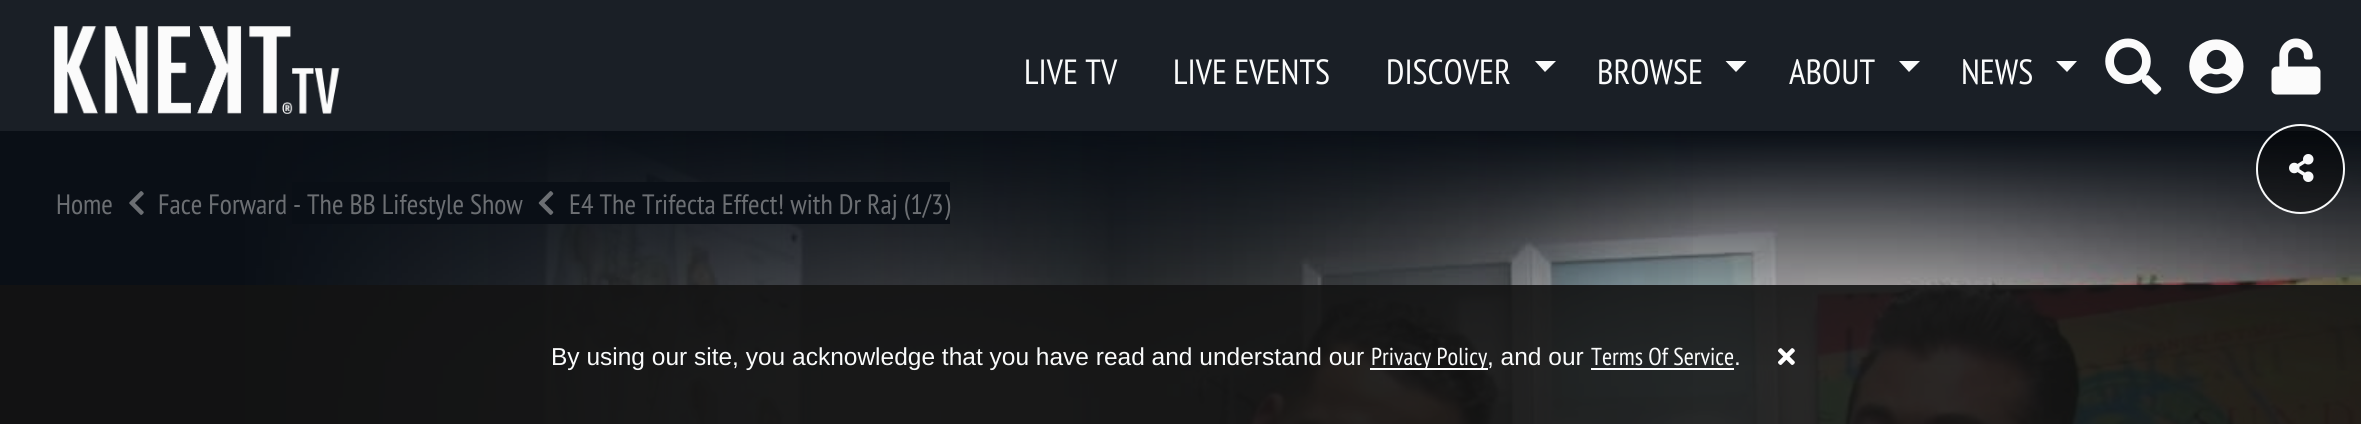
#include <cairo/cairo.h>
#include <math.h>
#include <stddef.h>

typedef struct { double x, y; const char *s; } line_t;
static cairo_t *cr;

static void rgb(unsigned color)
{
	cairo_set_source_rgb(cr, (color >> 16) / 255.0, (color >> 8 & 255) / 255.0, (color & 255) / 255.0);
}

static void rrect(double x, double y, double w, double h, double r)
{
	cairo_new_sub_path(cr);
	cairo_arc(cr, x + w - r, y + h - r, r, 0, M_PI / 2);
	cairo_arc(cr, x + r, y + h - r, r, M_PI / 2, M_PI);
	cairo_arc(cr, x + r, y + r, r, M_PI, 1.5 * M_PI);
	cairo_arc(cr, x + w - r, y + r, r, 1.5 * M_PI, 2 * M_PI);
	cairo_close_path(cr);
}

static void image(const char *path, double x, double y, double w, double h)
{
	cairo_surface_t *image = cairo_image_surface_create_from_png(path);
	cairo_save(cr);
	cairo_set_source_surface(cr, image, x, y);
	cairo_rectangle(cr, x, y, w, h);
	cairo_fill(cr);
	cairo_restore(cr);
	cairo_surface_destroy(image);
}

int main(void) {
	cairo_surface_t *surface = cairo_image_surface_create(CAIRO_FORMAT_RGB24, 2361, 424);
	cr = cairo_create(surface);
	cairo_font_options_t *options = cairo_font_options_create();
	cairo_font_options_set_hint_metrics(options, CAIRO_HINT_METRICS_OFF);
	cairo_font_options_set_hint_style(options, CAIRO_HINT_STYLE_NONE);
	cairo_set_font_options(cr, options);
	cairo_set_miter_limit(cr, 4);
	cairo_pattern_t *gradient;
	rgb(0x1a1f26);
	cairo_paint(cr);
	image("img/1.png", 54, 26, 286, 88);
	rgb(0xfafbfb);
	cairo_new_path(cr);
	cairo_move_to(cr, 1535, 61);
	cairo_line_to(cr, 1556, 61);
	cairo_line_to(cr, 1545, 72);
	cairo_close_path(cr);
	cairo_fill(cr);
	cairo_new_path(cr);
	cairo_move_to(cr, 1725.5, 61);
	cairo_line_to(cr, 1746.5, 61);
	cairo_line_to(cr, 1736, 72);
	cairo_close_path(cr);
	cairo_fill(cr);
	cairo_new_path(cr);
	cairo_move_to(cr, 1899, 61);
	cairo_line_to(cr, 1920, 61);
	cairo_line_to(cr, 1909, 72);
	cairo_close_path(cr);
	cairo_fill(cr);
	cairo_new_path(cr);
	cairo_move_to(cr, 2056, 61);
	cairo_line_to(cr, 2077, 61);
	cairo_line_to(cr, 2067, 72);
	cairo_close_path(cr);
	cairo_fill(cr);
	image("img/2.png", 2105, 38, 57, 57);
	image("img/3.png", 2189, 39, 55, 55);
	image("img/4.png", 2271, 38, 50, 57);
	image("img/6.png", 245, 132, 2116, 292);
	gradient = cairo_pattern_create_linear(1299, 131, 1299, 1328);
	cairo_pattern_add_color_stop_rgba(gradient, 0, 0.039, 0.059, 0.086, 1);
	cairo_pattern_add_color_stop_rgba(gradient, 0.2, 0.039, 0.059, 0.086, 0);
	cairo_set_source(cr, gradient);
	cairo_pattern_destroy(gradient);
	cairo_rectangle(cr, 245, 131, 2116, 234);
	cairo_fill(cr);
	cairo_set_source_rgba(cr, 0, 0, 0, 0.4);
	rrect(2257, 125, 87, 88, 43.5);
	cairo_fill_preserve(cr);
	rgb(0xf8f9fa);
	cairo_stroke(cr);
	image("img/5.png", 2289, 154, 25, 28);
	rgb(0x0a0f16);
	cairo_rectangle(cr, 0, 131, 236, 293);
	cairo_fill(cr);
	gradient = cairo_pattern_create_linear(236, 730, 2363, 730);
	cairo_pattern_add_color_stop_rgba(gradient, 0, 0.039, 0.059, 0.086, 1);
	cairo_pattern_add_color_stop_rgba(gradient, 0.7, 0.039, 0.059, 0.086, 0);
	cairo_set_source(cr, gradient);
	cairo_pattern_destroy(gradient);
	cairo_rectangle(cr, 236, 131, 1457, 293);
	cairo_fill(cr);
	rgb(0x0a0f16);
	cairo_rectangle(cr, 292, 182, 658, 42);
	cairo_fill(cr);
	image("img/7.png", 129, 191, 15, 24);
	image("img/8.png", 538, 191, 16, 24);
	cairo_set_source_rgba(cr, 0.078, 0.078, 0.078, 0.9);
	cairo_rectangle(cr, 0, 285, 2361, 139);
	cairo_fill(cr);
	rgb(0xffffff);
	cairo_rectangle(cr, 1370, 368, 118, 2);
	cairo_fill(cr);
	cairo_rectangle(cr, 1591, 368, 143, 2);
	cairo_fill(cr);
	image("img/9.png", 1778, 348, 17, 17);
	cairo_select_font_face(cr, "PT Sans Narrow", CAIRO_FONT_SLANT_NORMAL, CAIRO_FONT_WEIGHT_NORMAL);
	cairo_set_font_size(cr, 35);
	rgb(0xfafbfb);
	{
		static const line_t items[] = {
			{1024, 84, "LIVE TV"},
			{1173, 84, "LIVE EVENTS"},
			{1386, 84, "DISCOVER"},
			{1597, 84, "BROWSE"},
			{1789, 84, "ABOUT"},
			{1961, 84, "NEWS"},
		};
		for (size_t i = 0; i < sizeof items / sizeof *items; i++) {
			cairo_move_to(cr, items[i].x, items[i].y);
			cairo_show_text(cr, items[i].s);
		}
	}
	cairo_set_font_size(cr, 28);
	rgb(0x6c6f73);
	{
		static const line_t items[] = {
			{56, 214, "Home"},
			{158, 214, "Face Forward - The BB Lifestyle Show"},
			{569, 214, "E4 The Trifecta Effect! with Dr Raj (1/3)"},
		};
		for (size_t i = 0; i < sizeof items / sizeof *items; i++) {
			cairo_move_to(cr, items[i].x, items[i].y);
			cairo_show_text(cr, items[i].s);
		}
	}
	cairo_select_font_face(cr, "Liberation Sans", CAIRO_FONT_SLANT_NORMAL, CAIRO_FONT_WEIGHT_NORMAL);
	cairo_set_font_size(cr, 24.5);
	rgb(0xfafbfb);
	cairo_move_to(cr, 551, 365);
	cairo_show_text(cr, "By using our site, you acknowledge that you have read and understand our");
	cairo_select_font_face(cr, "PT Sans Narrow", CAIRO_FONT_SLANT_NORMAL, CAIRO_FONT_WEIGHT_NORMAL);
	cairo_move_to(cr, 1371, 365);
	cairo_show_text(cr, "Privacy Policy");
	cairo_select_font_face(cr, "Liberation Sans", CAIRO_FONT_SLANT_NORMAL, CAIRO_FONT_WEIGHT_NORMAL);
	cairo_move_to(cr, 1487, 365);
	cairo_show_text(cr, ", and our");
	cairo_select_font_face(cr, "PT Sans Narrow", CAIRO_FONT_SLANT_NORMAL, CAIRO_FONT_WEIGHT_NORMAL);
	cairo_move_to(cr, 1591, 365);
	cairo_show_text(cr, "Terms Of Service");
	cairo_select_font_face(cr, "Liberation Sans", CAIRO_FONT_SLANT_NORMAL, CAIRO_FONT_WEIGHT_NORMAL);
	cairo_move_to(cr, 1734, 365);
	cairo_show_text(cr, ".");
	cairo_surface_write_to_png(surface, "page.png");
	cairo_font_options_destroy(options);
	cairo_destroy(cr);
	cairo_surface_destroy(surface);
	return 0;
}
